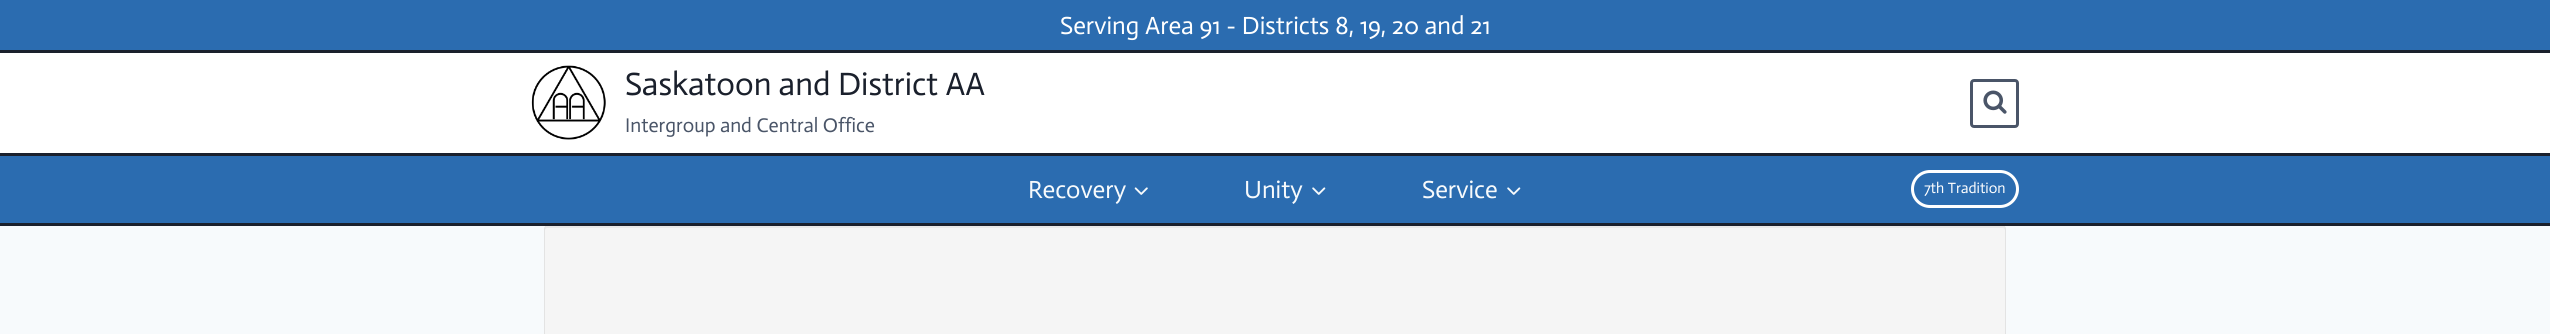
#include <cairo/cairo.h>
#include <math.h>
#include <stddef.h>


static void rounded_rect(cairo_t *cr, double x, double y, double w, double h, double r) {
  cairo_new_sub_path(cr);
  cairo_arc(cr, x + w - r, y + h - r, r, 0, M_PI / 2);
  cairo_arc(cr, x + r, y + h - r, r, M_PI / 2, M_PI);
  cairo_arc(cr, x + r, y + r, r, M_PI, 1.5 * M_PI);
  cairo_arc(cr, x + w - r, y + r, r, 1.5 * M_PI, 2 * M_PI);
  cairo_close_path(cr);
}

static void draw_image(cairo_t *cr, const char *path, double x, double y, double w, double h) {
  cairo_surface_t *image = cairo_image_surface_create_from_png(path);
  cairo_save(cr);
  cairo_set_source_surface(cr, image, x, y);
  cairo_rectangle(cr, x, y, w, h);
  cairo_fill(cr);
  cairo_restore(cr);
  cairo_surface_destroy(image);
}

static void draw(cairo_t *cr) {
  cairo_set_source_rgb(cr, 247 / 255.0, 250 / 255.0, 252 / 255.0);
  cairo_paint(cr);
  cairo_set_source_rgb(cr, 1, 1, 1);
  cairo_rectangle(cr, 0, 53, 2550, 100);
  cairo_fill(cr);
  cairo_set_source_rgb(cr, 43 / 255.0, 108 / 255.0, 176 / 255.0);
  cairo_rectangle(cr, 0, 0, 2550, 50);
  cairo_fill(cr);
  cairo_set_source_rgb(cr, 26 / 255.0, 32 / 255.0, 44 / 255.0);
  cairo_rectangle(cr, 0, 50, 2550, 3);
  cairo_fill(cr);
  draw_image(cr, "images/1.png", 531, 65, 75, 75);
  rounded_rect(cr, 1971.5, 80.5, 46, 46, 2.5);
  cairo_set_source_rgb(cr, 74 / 255.0, 85 / 255.0, 104 / 255.0);
  cairo_set_line_width(cr, 3);
  cairo_stroke(cr);
  draw_image(cr, "images/2.png", 1983, 90, 24, 24);
  cairo_set_source_rgb(cr, 43 / 255.0, 108 / 255.0, 176 / 255.0);
  cairo_rectangle(cr, 0, 156, 2550, 67);
  cairo_fill(cr);
  cairo_set_source_rgb(cr, 26 / 255.0, 32 / 255.0, 44 / 255.0);
  cairo_rectangle(cr, 0, 153, 2550, 3);
  cairo_fill(cr);
  cairo_set_source_rgb(cr, 245 / 255.0, 245 / 255.0, 245 / 255.0);
  rounded_rect(cr, 544, 225, 1462, 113, 4);
  cairo_fill(cr);
  cairo_set_source_rgb(cr, 233 / 255.0, 233 / 255.0, 233 / 255.0);
  cairo_new_path(cr);
  cairo_move_to(cr, 548, 228);
  cairo_line_to(cr, 2002, 228);
  cairo_curve_to(cr, 2004, 228, 2005, 229, 2005, 230);
  cairo_line_to(cr, 2005, 228);
  cairo_curve_to(cr, 2005, 227, 2004, 226, 2002, 226);
  cairo_line_to(cr, 548, 226);
  cairo_curve_to(cr, 546, 226, 545, 227, 545, 228);
  cairo_line_to(cr, 545, 230);
  cairo_curve_to(cr, 545, 229, 546, 228, 548, 228);
  cairo_close_path(cr);
  cairo_fill(cr);
  rounded_rect(cr, 544.5, 225.5, 1461, 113, 3.5);
  cairo_set_source_rgb(cr, 227 / 255.0, 227 / 255.0, 227 / 255.0);
  cairo_set_line_width(cr, 1);
  cairo_stroke(cr);
  cairo_set_source_rgb(cr, 26 / 255.0, 32 / 255.0, 44 / 255.0);
  cairo_rectangle(cr, 0, 223, 2550, 3);
  cairo_fill(cr);
  draw_image(cr, "images/3.png", 1134, 187, 14, 8);
  draw_image(cr, "images/4.png", 1312, 187, 14, 8);
  draw_image(cr, "images/4.png", 1507, 187, 14, 8);
  rounded_rect(cr, 1912.5, 171.5, 105, 35, 17.5);
  cairo_set_source_rgb(cr, 1, 1, 1);
  cairo_set_line_width(cr, 3);
  cairo_stroke(cr);
  cairo_select_font_face(cr, "Actor", CAIRO_FONT_SLANT_NORMAL, CAIRO_FONT_WEIGHT_NORMAL);
  cairo_set_font_size(cr, 25);
  cairo_move_to(cr, 1060, 34);
  cairo_show_text(cr, "Serving Area 91 - Districts 8, 19, 20 and 21");
  cairo_set_font_size(cr, 32.5);
  cairo_set_source_rgb(cr, 26 / 255.0, 32 / 255.0, 44 / 255.0);
  cairo_move_to(cr, 625, 95);
  cairo_show_text(cr, "Saskatoon and District AA");
  cairo_set_font_size(cr, 20);
  cairo_set_source_rgb(cr, 74 / 255.0, 85 / 255.0, 104 / 255.0);
  cairo_move_to(cr, 625, 132);
  cairo_show_text(cr, "Intergroup and Central Office");
  cairo_set_font_size(cr, 25);
  cairo_set_source_rgb(cr, 247 / 255.0, 250 / 255.0, 252 / 255.0);
  cairo_move_to(cr, 1028, 198);
  cairo_show_text(cr, "Recovery");
  cairo_move_to(cr, 1244, 198);
  cairo_show_text(cr, "Unity");
  cairo_move_to(cr, 1422, 198);
  cairo_show_text(cr, "Service");
  cairo_set_font_size(cr, 15);
  cairo_set_source_rgb(cr, 1, 1, 1);
  cairo_move_to(cr, 1924, 193);
  cairo_show_text(cr, "7th Tradition");
}

int main(void) {
  cairo_surface_t *surface = cairo_image_surface_create(CAIRO_FORMAT_RGB24, 2550, 334);
  cairo_t *cr = cairo_create(surface);
  cairo_font_options_t *options = cairo_font_options_create();
  cairo_font_options_set_hint_metrics(options, CAIRO_HINT_METRICS_OFF);
  cairo_font_options_set_hint_style(options, CAIRO_HINT_STYLE_NONE);
  cairo_set_font_options(cr, options);
  cairo_set_miter_limit(cr, 4);
  draw(cr);
  cairo_surface_write_to_png(surface, "out.png");
  cairo_font_options_destroy(options);
  cairo_destroy(cr);
  cairo_surface_destroy(surface);
  return 0;
}
